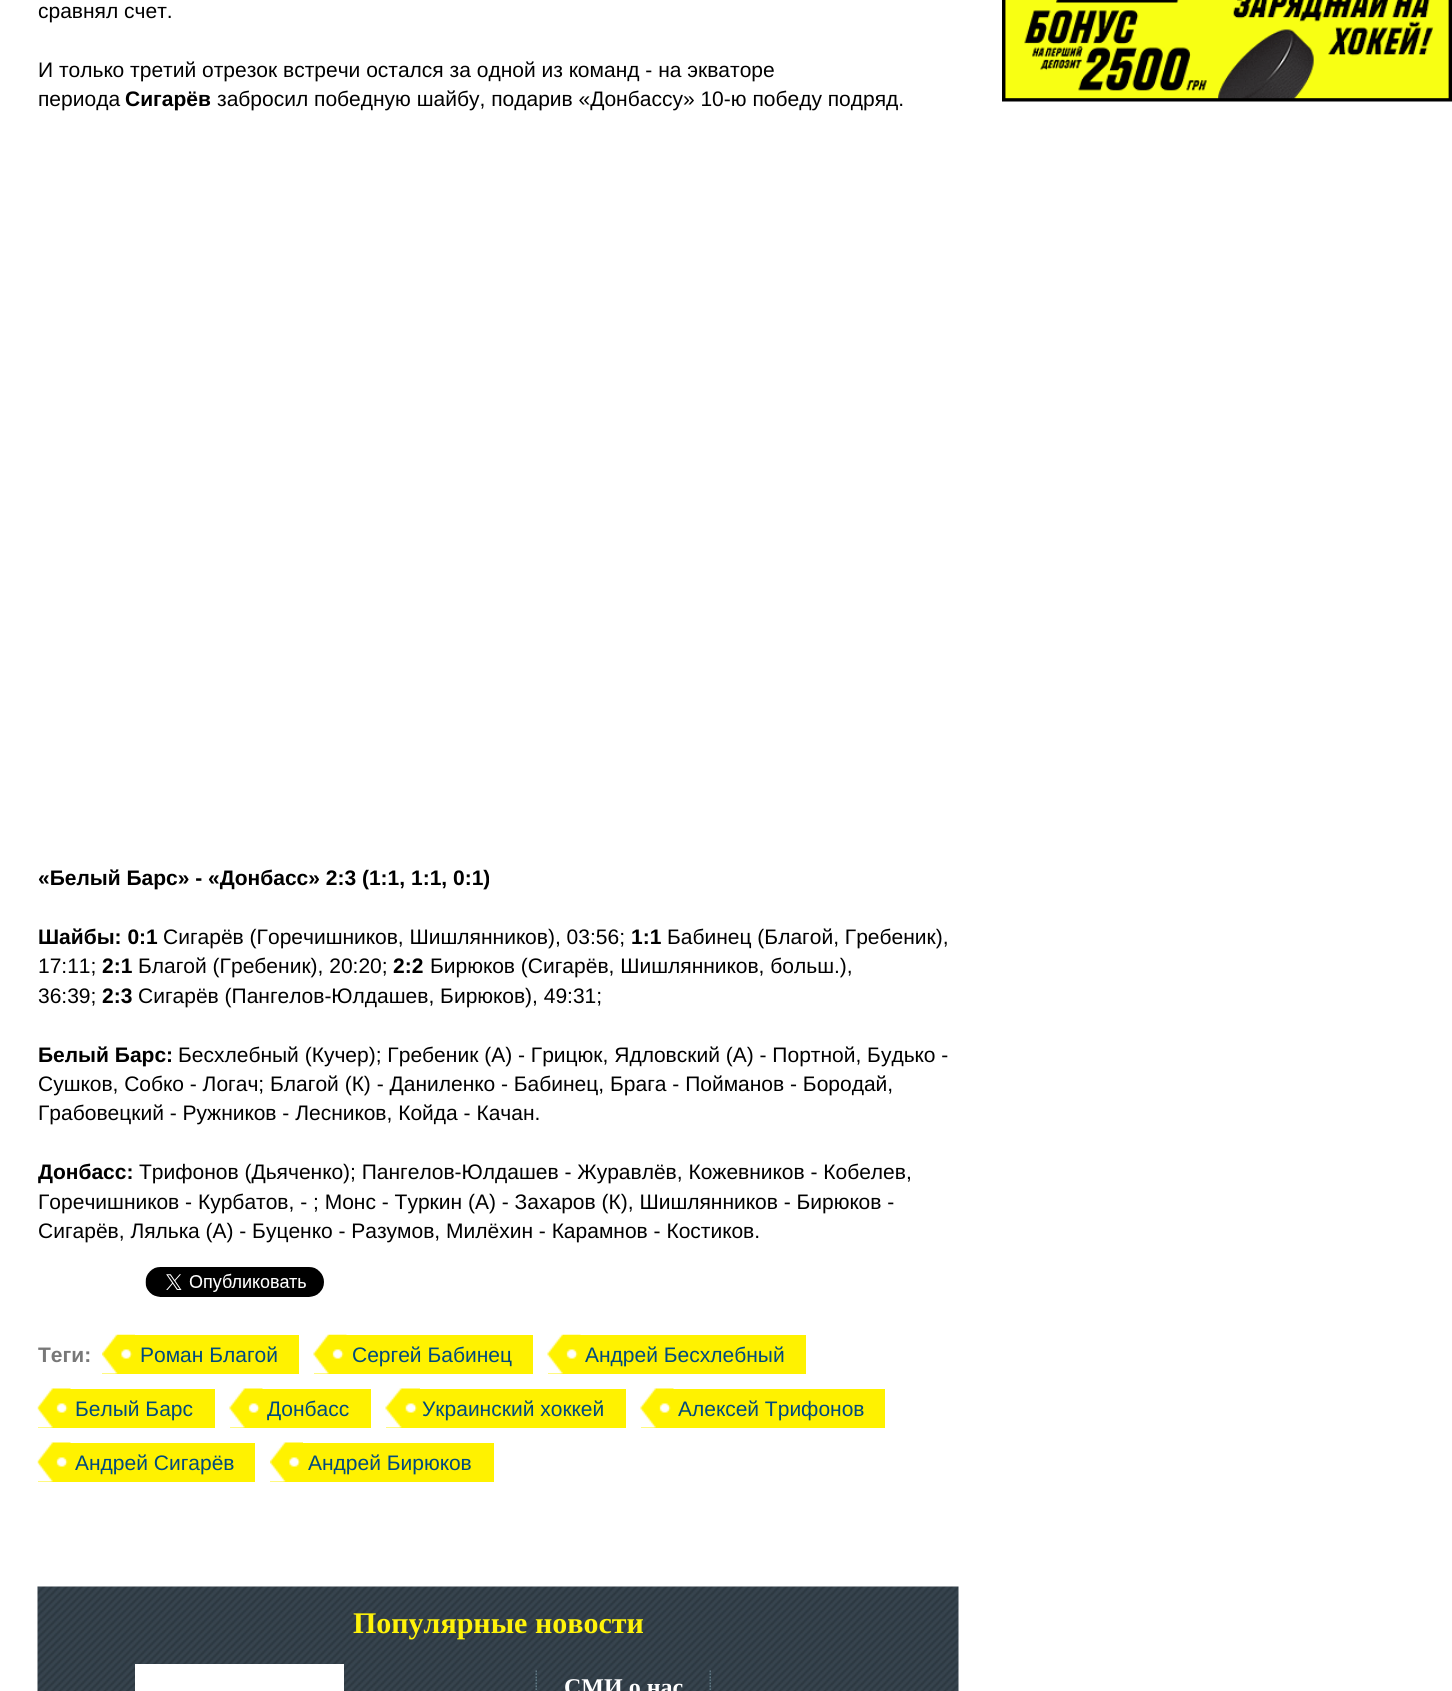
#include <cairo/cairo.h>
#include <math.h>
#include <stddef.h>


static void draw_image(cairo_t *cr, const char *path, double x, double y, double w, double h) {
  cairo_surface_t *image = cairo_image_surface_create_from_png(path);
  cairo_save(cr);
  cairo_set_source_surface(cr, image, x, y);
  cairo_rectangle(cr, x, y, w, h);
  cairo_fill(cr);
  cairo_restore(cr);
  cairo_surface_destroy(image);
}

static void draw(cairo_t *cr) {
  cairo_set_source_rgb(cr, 1, 1, 1);
  cairo_paint(cr);
  draw_image(cr, "images/1.png", 145, 1267, 179, 30);
  cairo_set_source_rgb(cr, 1, 242 / 255.0, 0);
  cairo_rectangle(cr, 102, 1335, 197, 39);
  cairo_fill(cr);
  draw_image(cr, "images/2.png", 102, 1334, 33, 40);
  cairo_rectangle(cr, 314, 1335, 219, 39);
  cairo_fill(cr);
  draw_image(cr, "images/3.png", 313, 1334, 34, 40);
  cairo_rectangle(cr, 548, 1335, 258, 39);
  cairo_fill(cr);
  draw_image(cr, "images/4.png", 547, 1334, 34, 40);
  cairo_rectangle(cr, 38, 1389, 177, 39);
  cairo_fill(cr);
  draw_image(cr, "images/5.png", 37, 1388, 34, 40);
  cairo_rectangle(cr, 230, 1389, 141, 39);
  cairo_fill(cr);
  draw_image(cr, "images/6.png", 229, 1388, 34, 40);
  cairo_rectangle(cr, 386, 1389, 240, 39);
  cairo_fill(cr);
  draw_image(cr, "images/7.png", 385, 1388, 35, 40);
  cairo_rectangle(cr, 641, 1389, 244, 39);
  cairo_fill(cr);
  draw_image(cr, "images/8.png", 640, 1388, 34, 40);
  cairo_rectangle(cr, 38, 1443, 217, 39);
  cairo_fill(cr);
  draw_image(cr, "images/5.png", 37, 1442, 34, 40);
  cairo_rectangle(cr, 270, 1443, 224, 39);
  cairo_fill(cr);
  draw_image(cr, "images/9.png", 270, 1442, 33, 40);
  draw_image(cr, "images/10.png", 37, 1586, 922, 105);
  cairo_set_source_rgb(cr, 1, 1, 1);
  cairo_rectangle(cr, 135, 1664, 209, 27);
  cairo_fill(cr);
  draw_image(cr, "images/11.png", 535, 1670, 2, 21);
  draw_image(cr, "images/12.png", 709, 1670, 2, 21);
  draw_image(cr, "images/13.png", 1002, 0, 450, 102);
  cairo_select_font_face(cr, "Liberation Sans", CAIRO_FONT_SLANT_NORMAL, CAIRO_FONT_WEIGHT_NORMAL);
  cairo_set_font_size(cr, 21);
  cairo_set_source_rgb(cr, 0, 0, 0);
  cairo_move_to(cr, 38, 18);
  cairo_show_text(cr, "сравнял счет.");
  cairo_move_to(cr, 38, 77);
  cairo_show_text(cr, "И только третий отрезок встречи остался за одной из команд - на экваторе");
  cairo_move_to(cr, 38, 106);
  cairo_show_text(cr, "периода");
  cairo_select_font_face(cr, "Liberation Sans", CAIRO_FONT_SLANT_NORMAL, CAIRO_FONT_WEIGHT_BOLD);
  cairo_move_to(cr, 125, 106);
  cairo_show_text(cr, "Сигарёв");
  cairo_select_font_face(cr, "Liberation Sans", CAIRO_FONT_SLANT_NORMAL, CAIRO_FONT_WEIGHT_NORMAL);
  cairo_move_to(cr, 217, 106);
  cairo_show_text(cr, "забросил победную шайбу, подарив «Донбассу» 10-ю победу подряд.");
  cairo_select_font_face(cr, "Liberation Sans", CAIRO_FONT_SLANT_NORMAL, CAIRO_FONT_WEIGHT_BOLD);
  cairo_move_to(cr, 38, 885);
  cairo_show_text(cr, "«Белый Барс» - «Донбасс» 2:3 (1:1, 1:1, 0:1)");
  cairo_move_to(cr, 38, 944);
  cairo_show_text(cr, "Шайбы: 0:1");
  cairo_select_font_face(cr, "Liberation Sans", CAIRO_FONT_SLANT_NORMAL, CAIRO_FONT_WEIGHT_NORMAL);
  cairo_move_to(cr, 163, 944);
  cairo_show_text(cr, "Сигарёв (Горечишников, Шишлянников), 03:56;");
  cairo_select_font_face(cr, "Liberation Sans", CAIRO_FONT_SLANT_NORMAL, CAIRO_FONT_WEIGHT_BOLD);
  cairo_move_to(cr, 631, 944);
  cairo_show_text(cr, "1:1");
  cairo_select_font_face(cr, "Liberation Sans", CAIRO_FONT_SLANT_NORMAL, CAIRO_FONT_WEIGHT_NORMAL);
  cairo_move_to(cr, 667, 944);
  cairo_show_text(cr, "Бабинец (Благой, Гребеник),");
  cairo_move_to(cr, 38, 973);
  cairo_show_text(cr, "17:11;");
  cairo_select_font_face(cr, "Liberation Sans", CAIRO_FONT_SLANT_NORMAL, CAIRO_FONT_WEIGHT_BOLD);
  cairo_move_to(cr, 102, 973);
  cairo_show_text(cr, "2:1");
  cairo_select_font_face(cr, "Liberation Sans", CAIRO_FONT_SLANT_NORMAL, CAIRO_FONT_WEIGHT_NORMAL);
  cairo_move_to(cr, 138, 973);
  cairo_show_text(cr, "Благой (Гребеник), 20:20;");
  cairo_select_font_face(cr, "Liberation Sans", CAIRO_FONT_SLANT_NORMAL, CAIRO_FONT_WEIGHT_BOLD);
  cairo_move_to(cr, 393, 973);
  cairo_show_text(cr, "2:2");
  cairo_select_font_face(cr, "Liberation Sans", CAIRO_FONT_SLANT_NORMAL, CAIRO_FONT_WEIGHT_NORMAL);
  cairo_move_to(cr, 430, 973);
  cairo_show_text(cr, "Бирюков (Сигарёв, Шишлянников, больш.),");
  cairo_move_to(cr, 38, 1003);
  cairo_show_text(cr, "36:39;");
  cairo_select_font_face(cr, "Liberation Sans", CAIRO_FONT_SLANT_NORMAL, CAIRO_FONT_WEIGHT_BOLD);
  cairo_move_to(cr, 102, 1003);
  cairo_show_text(cr, "2:3");
  cairo_select_font_face(cr, "Liberation Sans", CAIRO_FONT_SLANT_NORMAL, CAIRO_FONT_WEIGHT_NORMAL);
  cairo_move_to(cr, 138, 1003);
  cairo_show_text(cr, "Сигарёв (Пангелов-Юлдашев, Бирюков), 49:31;");
  cairo_select_font_face(cr, "Liberation Sans", CAIRO_FONT_SLANT_NORMAL, CAIRO_FONT_WEIGHT_BOLD);
  cairo_move_to(cr, 38, 1062);
  cairo_show_text(cr, "Белый Барс:");
  cairo_select_font_face(cr, "Liberation Sans", CAIRO_FONT_SLANT_NORMAL, CAIRO_FONT_WEIGHT_NORMAL);
  cairo_move_to(cr, 178, 1062);
  cairo_show_text(cr, "Бесхлебный (Кучер); Гребеник (А) - Грицюк, Ядловский (А) - Портной, Будько -");
  cairo_move_to(cr, 38, 1091);
  cairo_show_text(cr, "Сушков, Собко - Логач; Благой (К) - Даниленко - Бабинец, Брага - Пойманов - Бородай,");
  cairo_move_to(cr, 38, 1120);
  cairo_show_text(cr, "Грабовецкий - Ружников - Лесников, Койда - Качан.");
  cairo_select_font_face(cr, "Liberation Sans", CAIRO_FONT_SLANT_NORMAL, CAIRO_FONT_WEIGHT_BOLD);
  cairo_move_to(cr, 38, 1179);
  cairo_show_text(cr, "Донбасс:");
  cairo_select_font_face(cr, "Liberation Sans", CAIRO_FONT_SLANT_NORMAL, CAIRO_FONT_WEIGHT_NORMAL);
  cairo_move_to(cr, 139, 1179);
  cairo_show_text(cr, "Трифонов (Дьяченко); Пангелов-Юлдашев - Журавлёв, Кожевников - Кобелев,");
  cairo_move_to(cr, 38, 1209);
  cairo_show_text(cr, "Горечишников - Курбатов, - ; Монс - Туркин (А) - Захаров (К), Шишлянников - Бирюков -");
  cairo_move_to(cr, 38, 1238);
  cairo_show_text(cr, "Сигарёв, Лялька (А) - Буценко - Разумов, Милёхин - Карамнов - Костиков.");
  cairo_save(cr);
  cairo_rectangle(cr, 38, 1335, 921, 162);
  cairo_clip(cr);
  cairo_select_font_face(cr, "Liberation Sans", CAIRO_FONT_SLANT_NORMAL, CAIRO_FONT_WEIGHT_BOLD);
  cairo_set_source_rgb(cr, 120 / 255.0, 120 / 255.0, 120 / 255.0);
  cairo_move_to(cr, 38, 1362);
  cairo_show_text(cr, "Теги:");
  cairo_restore(cr);
  cairo_set_source_rgb(cr, 0, 74 / 255.0, 126 / 255.0);
  cairo_move_to(cr, 140, 1362);
  cairo_show_text(cr, "Роман Благой");
  cairo_move_to(cr, 352, 1362);
  cairo_show_text(cr, "Сергей Бабинец");
  cairo_move_to(cr, 585, 1362);
  cairo_show_text(cr, "Андрей Бесхлебный");
  cairo_move_to(cr, 75, 1416);
  cairo_show_text(cr, "Белый Барс");
  cairo_move_to(cr, 267, 1416);
  cairo_show_text(cr, "Донбасс");
  cairo_move_to(cr, 422, 1416);
  cairo_show_text(cr, "Украинский хоккей");
  cairo_move_to(cr, 678, 1416);
  cairo_show_text(cr, "Алексей Трифонов");
  cairo_move_to(cr, 75, 1470);
  cairo_show_text(cr, "Андрей Сигарёв");
  cairo_move_to(cr, 308, 1470);
  cairo_show_text(cr, "Андрей Бирюков");
  cairo_select_font_face(cr, "Liberation Serif", CAIRO_FONT_SLANT_NORMAL, CAIRO_FONT_WEIGHT_BOLD);
  cairo_set_font_size(cr, 30);
  cairo_set_source_rgb(cr, 1, 243 / 255.0, 10 / 255.0);
  cairo_move_to(cr, 353, 1633);
  cairo_show_text(cr, "Популярные новости");
  cairo_set_font_size(cr, 24);
  cairo_set_source_rgb(cr, 1, 1, 1);
  cairo_move_to(cr, 564, 1695);
  cairo_show_text(cr, "СМИ о нас");
}

int main(void) {
  cairo_surface_t *surface = cairo_image_surface_create(CAIRO_FORMAT_RGB24, 1452, 1691);
  cairo_t *cr = cairo_create(surface);
  cairo_font_options_t *options = cairo_font_options_create();
  cairo_font_options_set_hint_metrics(options, CAIRO_HINT_METRICS_OFF);
  cairo_font_options_set_hint_style(options, CAIRO_HINT_STYLE_NONE);
  cairo_set_font_options(cr, options);
  cairo_set_miter_limit(cr, 4);
  draw(cr);
  cairo_surface_write_to_png(surface, "out.png");
  cairo_font_options_destroy(options);
  cairo_destroy(cr);
  cairo_surface_destroy(surface);
  return 0;
}
